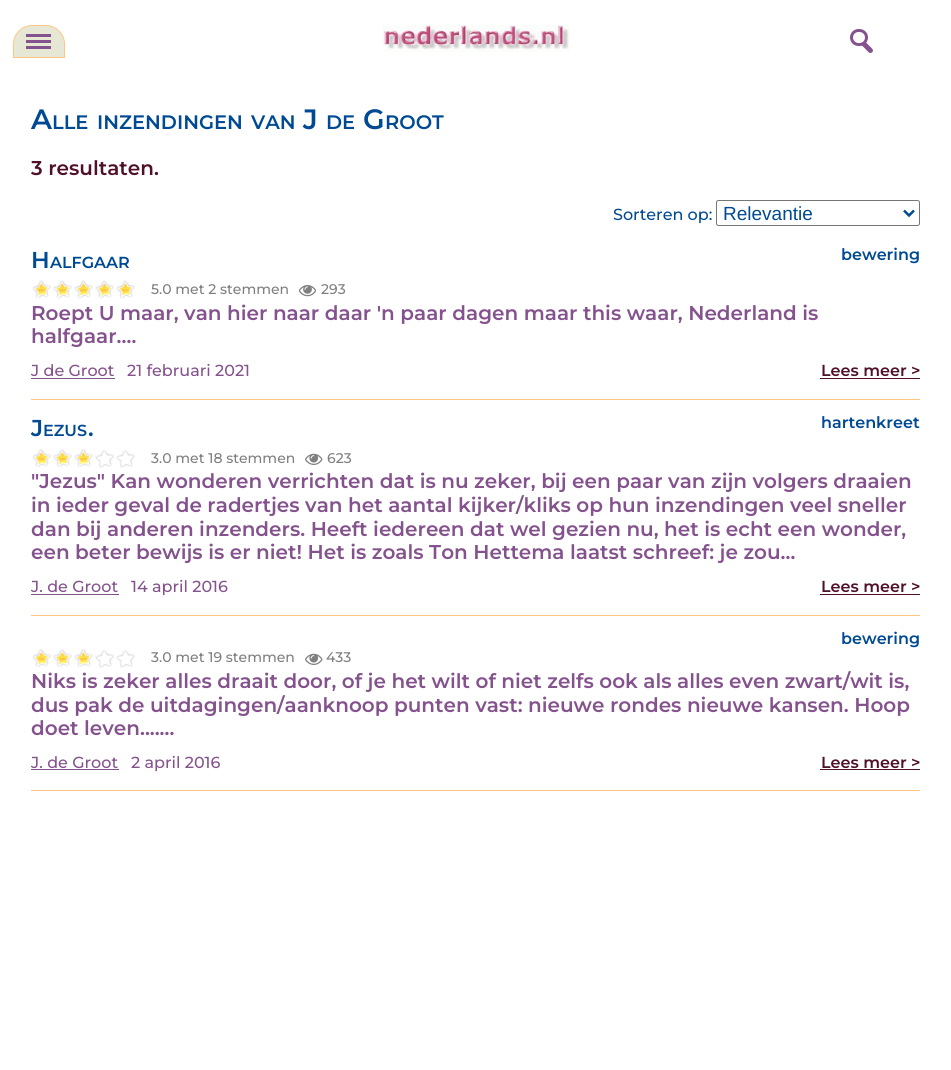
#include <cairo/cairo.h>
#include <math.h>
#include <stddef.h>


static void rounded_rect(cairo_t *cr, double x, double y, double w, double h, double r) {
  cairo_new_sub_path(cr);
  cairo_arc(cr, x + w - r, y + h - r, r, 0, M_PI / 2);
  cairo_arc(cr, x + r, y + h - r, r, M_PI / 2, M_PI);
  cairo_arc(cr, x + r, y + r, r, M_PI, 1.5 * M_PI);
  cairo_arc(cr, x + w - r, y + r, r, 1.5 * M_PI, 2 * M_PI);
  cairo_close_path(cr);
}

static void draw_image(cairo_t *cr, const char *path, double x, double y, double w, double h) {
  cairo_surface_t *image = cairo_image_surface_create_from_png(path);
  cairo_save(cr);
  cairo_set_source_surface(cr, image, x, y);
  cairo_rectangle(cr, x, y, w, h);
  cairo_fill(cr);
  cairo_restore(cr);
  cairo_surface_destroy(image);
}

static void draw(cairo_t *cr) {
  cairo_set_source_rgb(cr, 1, 1, 1);
  cairo_paint(cr);
  cairo_set_source_rgb(cr, 231 / 255.0, 231 / 255.0, 214 / 255.0);
  cairo_new_path(cr);
  cairo_move_to(cr, 32, 25.5);
  cairo_line_to(cr, 46, 25.5);
  cairo_curve_to(cr, 56, 25.5, 64.5, 34, 64.5, 44);
  cairo_line_to(cr, 64.5, 57.5);
  cairo_line_to(cr, 13.5, 57.5);
  cairo_line_to(cr, 13.5, 44);
  cairo_curve_to(cr, 13.5, 34, 22, 25.5, 32, 25.5);
  cairo_close_path(cr);
  cairo_fill_preserve(cr);
  cairo_set_source_rgb(cr, 1, 198 / 255.0, 132 / 255.0);
  cairo_set_line_width(cr, 1);
  cairo_stroke(cr);
  cairo_set_source_rgb(cr, 132 / 255.0, 82 / 255.0, 140 / 255.0);
  cairo_rectangle(cr, 26, 34, 25, 3);
  cairo_fill(cr);
  cairo_rectangle(cr, 26, 40, 25, 3);
  cairo_fill(cr);
  cairo_rectangle(cr, 26, 46, 25, 3);
  cairo_fill(cr);
  draw_image(cr, "images/1.png", 382, 25, 188, 27);
  rounded_rect(cr, 851.5, 30.5, 15, 14, 7);
  cairo_set_line_width(cr, 3);
  cairo_stroke(cr);
  cairo_new_path(cr);
  cairo_move_to(cr, 866, 42.5);
  cairo_line_to(cr, 870.5, 47);
  cairo_curve_to(cr, 871.5, 48, 874, 50, 872.5, 52);
  cairo_line_to(cr, 871, 53);
  cairo_curve_to(cr, 869, 53.5, 867, 50.5, 866, 49.5);
  cairo_line_to(cr, 862, 45.5);
  cairo_curve_to(cr, 861, 43, 864.5, 41, 866, 42.5);
  cairo_close_path(cr);
  cairo_fill(cr);
  rounded_rect(cr, 716.5, 200.5, 203, 25, 2);
  cairo_set_source_rgb(cr, 118 / 255.0, 118 / 255.0, 118 / 255.0);
  cairo_set_line_width(cr, 1);
  cairo_stroke(cr);
  cairo_new_path(cr);
  cairo_move_to(cr, 904, 210.5);
  cairo_line_to(cr, 909, 215.5);
  cairo_line_to(cr, 914, 210.5);
  cairo_set_source_rgb(cr, 0, 74 / 255.0, 148 / 255.0);
  cairo_set_line_width(cr, 2.5);
  cairo_stroke(cr);
  draw_image(cr, "images/2.png", 32, 281, 1, 18);
  draw_image(cr, "images/3.png", 33, 280, 102, 19);
  draw_image(cr, "images/4.png", 299, 285, 17, 12);
  cairo_set_source_rgb(cr, 132 / 255.0, 82 / 255.0, 140 / 255.0);
  cairo_rectangle(cr, 31, 378, 84, 1);
  cairo_fill(cr);
  cairo_set_source_rgb(cr, 80 / 255.0, 16 / 255.0, 42 / 255.0);
  cairo_rectangle(cr, 820, 378, 100, 1);
  cairo_fill(cr);
  cairo_set_source_rgb(cr, 1, 198 / 255.0, 132 / 255.0);
  cairo_rectangle(cr, 31, 399, 889, 1);
  cairo_fill(cr);
  draw_image(cr, "images/5.png", 32, 450, 103, 18);
  draw_image(cr, "images/6.png", 33, 449, 60, 19);
  draw_image(cr, "images/7.png", 305, 453, 18, 12);
  cairo_set_source_rgb(cr, 132 / 255.0, 82 / 255.0, 140 / 255.0);
  cairo_rectangle(cr, 31, 594, 88, 1);
  cairo_fill(cr);
  cairo_set_source_rgb(cr, 80 / 255.0, 16 / 255.0, 42 / 255.0);
  cairo_rectangle(cr, 820, 594, 100, 1);
  cairo_fill(cr);
  cairo_set_source_rgb(cr, 1, 198 / 255.0, 132 / 255.0);
  cairo_rectangle(cr, 31, 615, 889, 1);
  cairo_fill(cr);
  draw_image(cr, "images/5.png", 32, 650, 103, 18);
  draw_image(cr, "images/8.png", 33, 649, 60, 19);
  draw_image(cr, "images/7.png", 305, 653, 18, 12);
  cairo_set_source_rgb(cr, 132 / 255.0, 82 / 255.0, 140 / 255.0);
  cairo_rectangle(cr, 31, 769, 88, 1);
  cairo_fill(cr);
  cairo_set_source_rgb(cr, 80 / 255.0, 16 / 255.0, 42 / 255.0);
  cairo_rectangle(cr, 820, 769, 100, 1);
  cairo_fill(cr);
  cairo_set_source_rgb(cr, 1, 198 / 255.0, 132 / 255.0);
  cairo_rectangle(cr, 31, 790, 889, 1);
  cairo_fill(cr);
  cairo_select_font_face(cr, "Montserrat Thin", CAIRO_FONT_SLANT_NORMAL, CAIRO_FONT_WEIGHT_NORMAL);
  cairo_set_font_size(cr, 28);
  cairo_set_source_rgb(cr, 0, 74 / 255.0, 148 / 255.0);
  cairo_move_to(cr, 31, 129);
  cairo_show_text(cr, "A");
  cairo_set_font_size(cr, 19.5);
  cairo_move_to(cr, 52, 129);
  cairo_show_text(cr, "LLE");
  cairo_move_to(cr, 97, 129);
  cairo_show_text(cr, "INZENDINGEN");
  cairo_move_to(cr, 251, 129);
  cairo_show_text(cr, "VAN");
  cairo_set_font_size(cr, 28);
  cairo_move_to(cr, 303, 129);
  cairo_show_text(cr, "J");
  cairo_set_font_size(cr, 19.5);
  cairo_move_to(cr, 326, 129);
  cairo_show_text(cr, "DE");
  cairo_set_font_size(cr, 28);
  cairo_move_to(cr, 363, 129);
  cairo_show_text(cr, "G");
  cairo_set_font_size(cr, 19.5);
  cairo_move_to(cr, 385, 129);
  cairo_show_text(cr, "ROOT");
  cairo_set_font_size(cr, 20);
  cairo_set_source_rgb(cr, 80 / 255.0, 16 / 255.0, 42 / 255.0);
  cairo_move_to(cr, 31, 175);
  cairo_show_text(cr, "3 resultaten.");
  cairo_select_font_face(cr, "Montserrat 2 Thin", CAIRO_FONT_SLANT_NORMAL, CAIRO_FONT_WEIGHT_NORMAL);
  cairo_set_font_size(cr, 16);
  cairo_set_source_rgb(cr, 0, 74 / 255.0, 148 / 255.0);
  cairo_move_to(cr, 613, 220);
  cairo_show_text(cr, "Sorteren op:");
  cairo_select_font_face(cr, "Liberation Sans", CAIRO_FONT_SLANT_NORMAL, CAIRO_FONT_WEIGHT_NORMAL);
  cairo_set_font_size(cr, 19);
  cairo_move_to(cr, 723, 220);
  cairo_show_text(cr, "Relevantie");
  cairo_select_font_face(cr, "Montserrat Thin", CAIRO_FONT_SLANT_NORMAL, CAIRO_FONT_WEIGHT_NORMAL);
  cairo_set_font_size(cr, 23);
  cairo_move_to(cr, 31, 268);
  cairo_show_text(cr, "H");
  cairo_set_font_size(cr, 16);
  cairo_move_to(cr, 50, 268);
  cairo_show_text(cr, "ALFGAAR");
  cairo_move_to(cr, 841, 260);
  cairo_show_text(cr, "bewering");
  cairo_select_font_face(cr, "Montserrat 2 Thin", CAIRO_FONT_SLANT_NORMAL, CAIRO_FONT_WEIGHT_NORMAL);
  cairo_set_font_size(cr, 14);
  cairo_set_source_rgb(cr, 128 / 255.0, 128 / 255.0, 128 / 255.0);
  cairo_move_to(cr, 151, 294);
  cairo_show_text(cr, "5.0 met 2 stemmen");
  cairo_move_to(cr, 321, 294);
  cairo_show_text(cr, "293");
  cairo_select_font_face(cr, "Montserrat Thin", CAIRO_FONT_SLANT_NORMAL, CAIRO_FONT_WEIGHT_NORMAL);
  cairo_set_font_size(cr, 20);
  cairo_set_source_rgb(cr, 132 / 255.0, 82 / 255.0, 140 / 255.0);
  cairo_move_to(cr, 31, 320);
  cairo_show_text(cr, "Roept U maar, van hier naar daar 'n paar dagen maar this waar, Nederland is");
  cairo_move_to(cr, 31, 343);
  cairo_show_text(cr, "halfgaar.…");
  cairo_select_font_face(cr, "Montserrat 2 Thin", CAIRO_FONT_SLANT_NORMAL, CAIRO_FONT_WEIGHT_NORMAL);
  cairo_set_font_size(cr, 16);
  cairo_move_to(cr, 31, 376);
  cairo_show_text(cr, "J de Groot");
  cairo_move_to(cr, 127, 376);
  cairo_show_text(cr, "21 februari 2021");
  cairo_select_font_face(cr, "Montserrat Thin", CAIRO_FONT_SLANT_NORMAL, CAIRO_FONT_WEIGHT_NORMAL);
  cairo_set_source_rgb(cr, 80 / 255.0, 16 / 255.0, 42 / 255.0);
  cairo_move_to(cr, 821, 376);
  cairo_show_text(cr, "Lees meer >");
  cairo_set_font_size(cr, 23);
  cairo_set_source_rgb(cr, 0, 74 / 255.0, 148 / 255.0);
  cairo_move_to(cr, 31, 436);
  cairo_show_text(cr, "J");
  cairo_set_font_size(cr, 16);
  cairo_move_to(cr, 43, 436);
  cairo_show_text(cr, "EZUS");
  cairo_set_font_size(cr, 23);
  cairo_move_to(cr, 88, 436);
  cairo_show_text(cr, ".");
  cairo_set_font_size(cr, 16);
  cairo_move_to(cr, 821, 428);
  cairo_show_text(cr, "hartenkreet");
  cairo_select_font_face(cr, "Montserrat 2 Thin", CAIRO_FONT_SLANT_NORMAL, CAIRO_FONT_WEIGHT_NORMAL);
  cairo_set_font_size(cr, 14);
  cairo_set_source_rgb(cr, 128 / 255.0, 128 / 255.0, 128 / 255.0);
  cairo_move_to(cr, 151, 463);
  cairo_show_text(cr, "3.0 met 18 stemmen");
  cairo_move_to(cr, 327, 463);
  cairo_show_text(cr, "623");
  cairo_select_font_face(cr, "Montserrat Thin", CAIRO_FONT_SLANT_NORMAL, CAIRO_FONT_WEIGHT_NORMAL);
  cairo_set_font_size(cr, 20);
  cairo_set_source_rgb(cr, 132 / 255.0, 82 / 255.0, 140 / 255.0);
  cairo_move_to(cr, 31, 488);
  cairo_show_text(cr, "\"Jezus\" Kan wonderen verrichten dat is nu zeker, bij een paar van zijn volgers draaien");
  cairo_move_to(cr, 31, 512);
  cairo_show_text(cr, "in ieder geval de radertjes van het aantal kijker/kliks op hun inzendingen veel sneller");
  cairo_move_to(cr, 31, 536);
  cairo_show_text(cr, "dan bij anderen inzenders. Heeft iedereen dat wel gezien nu, het is echt een wonder,");
  cairo_move_to(cr, 31, 559);
  cairo_show_text(cr, "een beter bewijs is er niet! Het is zoals Ton Hettema laatst schreef: je zou…");
  cairo_select_font_face(cr, "Montserrat 2 Thin", CAIRO_FONT_SLANT_NORMAL, CAIRO_FONT_WEIGHT_NORMAL);
  cairo_set_font_size(cr, 16);
  cairo_move_to(cr, 31, 592);
  cairo_show_text(cr, "J. de Groot");
  cairo_move_to(cr, 131, 592);
  cairo_show_text(cr, "14 april 2016");
  cairo_select_font_face(cr, "Montserrat Thin", CAIRO_FONT_SLANT_NORMAL, CAIRO_FONT_WEIGHT_NORMAL);
  cairo_set_source_rgb(cr, 80 / 255.0, 16 / 255.0, 42 / 255.0);
  cairo_move_to(cr, 821, 592);
  cairo_show_text(cr, "Lees meer >");
  cairo_set_source_rgb(cr, 0, 74 / 255.0, 148 / 255.0);
  cairo_move_to(cr, 841, 644);
  cairo_show_text(cr, "bewering");
  cairo_select_font_face(cr, "Montserrat 2 Thin", CAIRO_FONT_SLANT_NORMAL, CAIRO_FONT_WEIGHT_NORMAL);
  cairo_set_font_size(cr, 14);
  cairo_set_source_rgb(cr, 128 / 255.0, 128 / 255.0, 128 / 255.0);
  cairo_move_to(cr, 151, 662);
  cairo_show_text(cr, "3.0 met 19 stemmen");
  cairo_move_to(cr, 326, 662);
  cairo_show_text(cr, "433");
  cairo_select_font_face(cr, "Montserrat Thin", CAIRO_FONT_SLANT_NORMAL, CAIRO_FONT_WEIGHT_NORMAL);
  cairo_set_font_size(cr, 20);
  cairo_set_source_rgb(cr, 132 / 255.0, 82 / 255.0, 140 / 255.0);
  cairo_move_to(cr, 31, 688);
  cairo_show_text(cr, "Niks is zeker alles draait door, of je het wilt of niet zelfs ook als alles even zwart/wit is,");
  cairo_move_to(cr, 31, 712);
  cairo_show_text(cr, "dus pak de uitdagingen/aanknoop punten vast: nieuwe rondes nieuwe kansen. Hoop");
  cairo_move_to(cr, 31, 735);
  cairo_show_text(cr, "doet leven....…");
  cairo_select_font_face(cr, "Montserrat 2 Thin", CAIRO_FONT_SLANT_NORMAL, CAIRO_FONT_WEIGHT_NORMAL);
  cairo_set_font_size(cr, 16);
  cairo_move_to(cr, 31, 768);
  cairo_show_text(cr, "J. de Groot");
  cairo_move_to(cr, 131, 768);
  cairo_show_text(cr, "2 april 2016");
  cairo_select_font_face(cr, "Montserrat Thin", CAIRO_FONT_SLANT_NORMAL, CAIRO_FONT_WEIGHT_NORMAL);
  cairo_set_source_rgb(cr, 80 / 255.0, 16 / 255.0, 42 / 255.0);
  cairo_move_to(cr, 821, 768);
  cairo_show_text(cr, "Lees meer >");
}

int main(void) {
  cairo_surface_t *surface = cairo_image_surface_create(CAIRO_FORMAT_RGB24, 951, 1070);
  cairo_t *cr = cairo_create(surface);
  cairo_font_options_t *options = cairo_font_options_create();
  cairo_font_options_set_hint_metrics(options, CAIRO_HINT_METRICS_OFF);
  cairo_font_options_set_hint_style(options, CAIRO_HINT_STYLE_NONE);
  cairo_set_font_options(cr, options);
  cairo_set_miter_limit(cr, 4);
  draw(cr);
  cairo_surface_write_to_png(surface, "out.png");
  cairo_font_options_destroy(options);
  cairo_destroy(cr);
  cairo_surface_destroy(surface);
  return 0;
}
